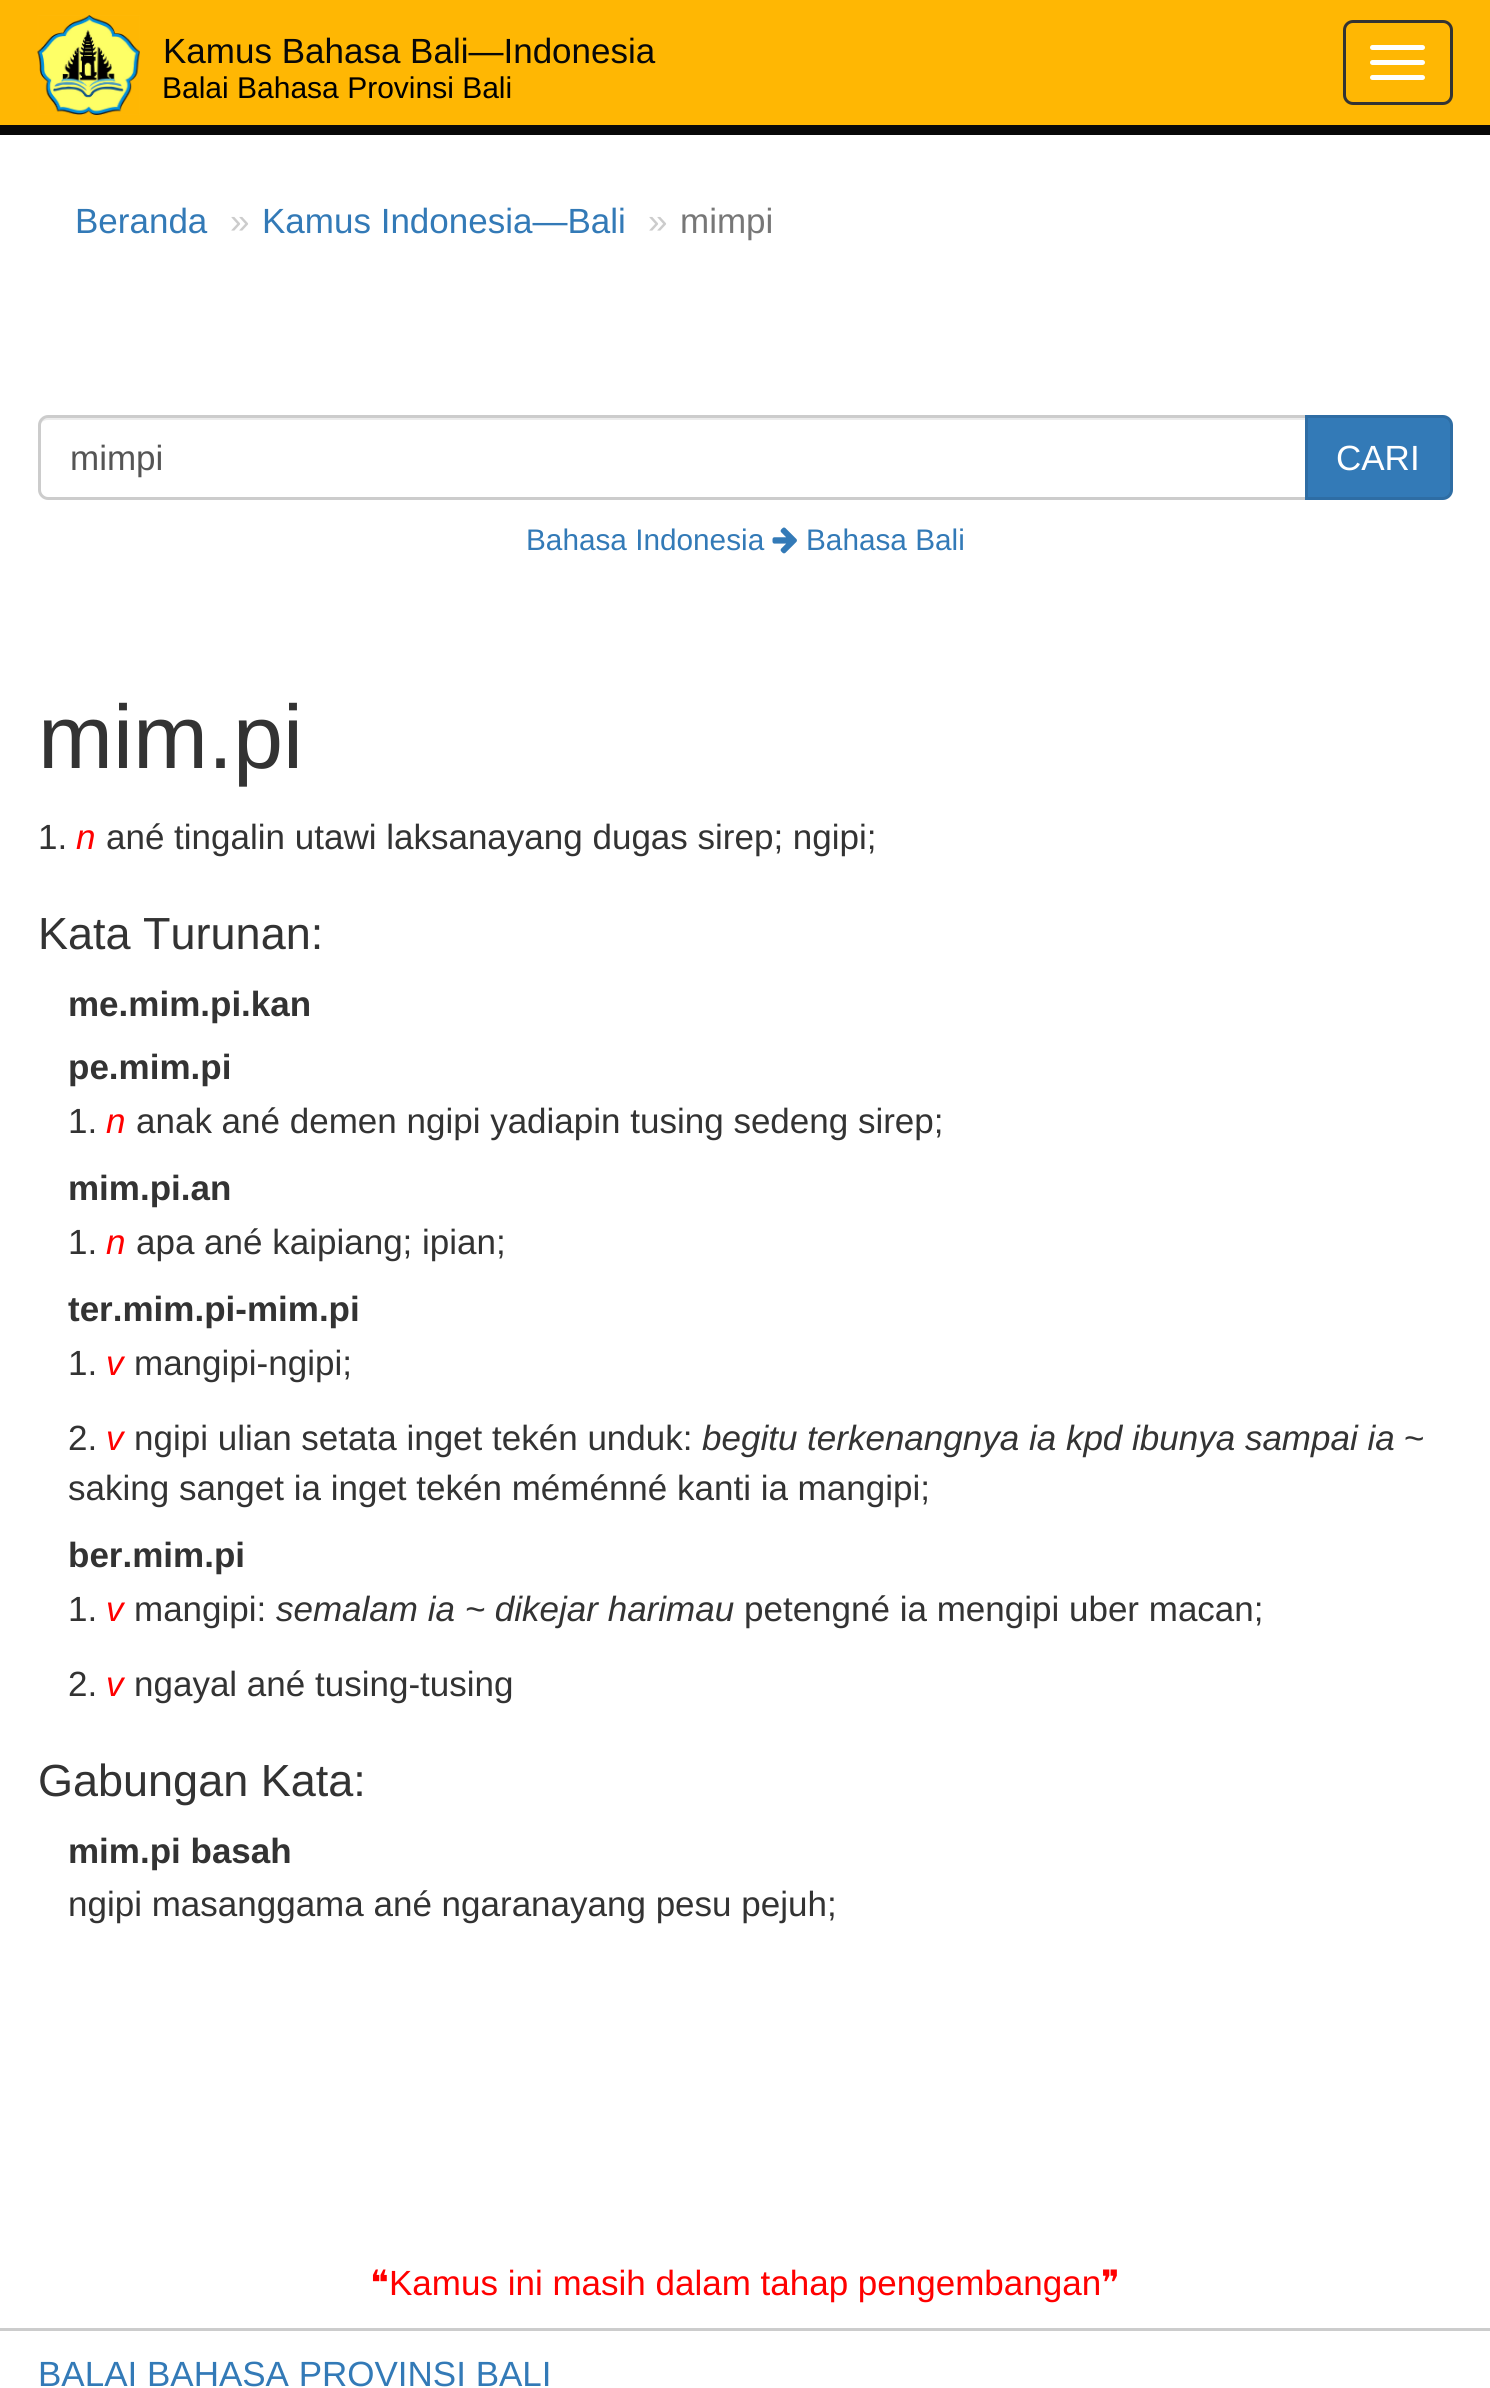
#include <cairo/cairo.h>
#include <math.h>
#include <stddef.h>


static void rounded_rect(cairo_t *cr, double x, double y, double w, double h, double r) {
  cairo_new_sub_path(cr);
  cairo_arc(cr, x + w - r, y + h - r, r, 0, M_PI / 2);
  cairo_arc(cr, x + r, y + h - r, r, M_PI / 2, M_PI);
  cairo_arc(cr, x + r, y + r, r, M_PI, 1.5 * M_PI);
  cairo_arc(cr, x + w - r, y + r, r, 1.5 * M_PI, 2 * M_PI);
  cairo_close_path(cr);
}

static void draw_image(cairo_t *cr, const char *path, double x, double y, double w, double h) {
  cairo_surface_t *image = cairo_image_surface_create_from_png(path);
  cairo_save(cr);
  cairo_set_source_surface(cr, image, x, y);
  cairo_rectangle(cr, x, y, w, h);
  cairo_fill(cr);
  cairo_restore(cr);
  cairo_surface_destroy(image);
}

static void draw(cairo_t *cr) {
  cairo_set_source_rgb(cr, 1, 1, 1);
  cairo_paint(cr);
  cairo_set_source_rgb(cr, 1, 183 / 255.0, 3 / 255.0);
  cairo_rectangle(cr, 0, 0, 1490, 125);
  cairo_fill(cr);
  cairo_set_source_rgb(cr, 8 / 255.0, 8 / 255.0, 8 / 255.0);
  cairo_rectangle(cr, 0, 125, 1490, 10);
  cairo_fill(cr);
  draw_image(cr, "images/1.png", 37, 15, 103, 100);
  rounded_rect(cr, 1344.5, 21.5, 107, 82, 8.5);
  cairo_set_source_rgb(cr, 51 / 255.0, 51 / 255.0, 51 / 255.0);
  cairo_set_line_width(cr, 3);
  cairo_stroke(cr);
  cairo_set_source_rgb(cr, 1, 1, 1);
  rounded_rect(cr, 1370, 45, 55, 5, 2.5);
  cairo_fill(cr);
  rounded_rect(cr, 1370, 60, 55, 5, 2.5);
  cairo_fill(cr);
  rounded_rect(cr, 1370, 75, 55, 5, 2.5);
  cairo_fill(cr);
  cairo_set_source_rgb(cr, 236 / 255.0, 236 / 255.0, 236 / 255.0);
  cairo_new_path(cr);
  cairo_move_to(cr, 48, 420);
  cairo_line_to(cr, 1305, 420);
  cairo_line_to(cr, 1305, 418);
  cairo_line_to(cr, 48, 418);
  cairo_curve_to(cr, 42, 418, 40, 423, 40, 428);
  cairo_curve_to(cr, 40, 423, 43, 420, 48, 420);
  cairo_close_path(cr);
  cairo_fill(cr);
  cairo_new_path(cr);
  cairo_move_to(cr, 48, 416.5);
  cairo_line_to(cr, 1306.5, 416.5);
  cairo_line_to(cr, 1306.5, 498.5);
  cairo_line_to(cr, 48, 498.5);
  cairo_curve_to(cr, 43.5, 498.5, 39.5, 494.5, 39.5, 490);
  cairo_line_to(cr, 39.5, 425);
  cairo_curve_to(cr, 39.5, 420.5, 43.5, 416.5, 48, 416.5);
  cairo_close_path(cr);
  cairo_set_source_rgb(cr, 204 / 255.0, 204 / 255.0, 204 / 255.0);
  cairo_stroke(cr);
  cairo_set_source_rgb(cr, 51 / 255.0, 122 / 255.0, 183 / 255.0);
  cairo_new_path(cr);
  cairo_move_to(cr, 1306.5, 416.5);
  cairo_line_to(cr, 1443, 416.5);
  cairo_curve_to(cr, 1447.5, 416.5, 1451.5, 420.5, 1451.5, 425);
  cairo_line_to(cr, 1451.5, 490);
  cairo_curve_to(cr, 1451.5, 494.5, 1447.5, 498.5, 1443, 498.5);
  cairo_line_to(cr, 1306.5, 498.5);
  cairo_close_path(cr);
  cairo_fill_preserve(cr);
  cairo_set_source_rgb(cr, 46 / 255.0, 109 / 255.0, 164 / 255.0);
  cairo_stroke(cr);
  draw_image(cr, "images/2.png", 772, 527, 25, 27);
  cairo_set_source_rgb(cr, 204 / 255.0, 204 / 255.0, 204 / 255.0);
  cairo_rectangle(cr, 0, 2328, 1490, 3);
  cairo_fill(cr);
  cairo_select_font_face(cr, "Liberation Sans", CAIRO_FONT_SLANT_NORMAL, CAIRO_FONT_WEIGHT_NORMAL);
  cairo_set_font_size(cr, 35);
  cairo_set_source_rgb(cr, 8 / 255.0, 8 / 255.0, 8 / 255.0);
  cairo_move_to(cr, 163, 63);
  cairo_show_text(cr, "Kamus Bahasa Bali—Indonesia");
  cairo_set_font_size(cr, 30);
  cairo_set_source_rgb(cr, 0, 0, 0);
  cairo_move_to(cr, 162, 98);
  cairo_show_text(cr, "Balai Bahasa Provinsi Bali");
  cairo_set_font_size(cr, 35);
  cairo_set_source_rgb(cr, 51 / 255.0, 122 / 255.0, 183 / 255.0);
  cairo_move_to(cr, 75, 233);
  cairo_show_text(cr, "Beranda");
  cairo_set_source_rgb(cr, 204 / 255.0, 204 / 255.0, 204 / 255.0);
  cairo_move_to(cr, 230, 233);
  cairo_show_text(cr, "»");
  cairo_set_source_rgb(cr, 51 / 255.0, 122 / 255.0, 183 / 255.0);
  cairo_move_to(cr, 262, 233);
  cairo_show_text(cr, "Kamus Indonesia—Bali");
  cairo_set_source_rgb(cr, 204 / 255.0, 204 / 255.0, 204 / 255.0);
  cairo_move_to(cr, 648, 233);
  cairo_show_text(cr, "»");
  cairo_set_source_rgb(cr, 119 / 255.0, 119 / 255.0, 119 / 255.0);
  cairo_move_to(cr, 680, 233);
  cairo_show_text(cr, "mimpi");
  cairo_set_source_rgb(cr, 85 / 255.0, 85 / 255.0, 85 / 255.0);
  cairo_move_to(cr, 70, 470);
  cairo_show_text(cr, "mimpi");
  cairo_set_source_rgb(cr, 1, 1, 1);
  cairo_move_to(cr, 1336, 470);
  cairo_show_text(cr, "CARI");
  cairo_set_font_size(cr, 29.75);
  cairo_set_source_rgb(cr, 51 / 255.0, 122 / 255.0, 183 / 255.0);
  cairo_move_to(cr, 526, 550);
  cairo_show_text(cr, "Bahasa Indonesia");
  cairo_move_to(cr, 806, 550);
  cairo_show_text(cr, "Bahasa Bali");
  cairo_set_font_size(cr, 90);
  cairo_set_source_rgb(cr, 51 / 255.0, 51 / 255.0, 51 / 255.0);
  cairo_move_to(cr, 38, 768);
  cairo_show_text(cr, "mim.pi");
  cairo_set_font_size(cr, 35);
  cairo_move_to(cr, 38, 849);
  cairo_show_text(cr, "1.");
  cairo_select_font_face(cr, "Liberation Sans", CAIRO_FONT_SLANT_ITALIC, CAIRO_FONT_WEIGHT_NORMAL);
  cairo_set_source_rgb(cr, 1, 0, 0);
  cairo_move_to(cr, 76, 849);
  cairo_show_text(cr, "n");
  cairo_select_font_face(cr, "Liberation Sans", CAIRO_FONT_SLANT_NORMAL, CAIRO_FONT_WEIGHT_NORMAL);
  cairo_set_source_rgb(cr, 51 / 255.0, 51 / 255.0, 51 / 255.0);
  cairo_move_to(cr, 106, 849);
  cairo_show_text(cr, "ané tingalin utawi laksanayang dugas sirep; ngipi;");
  cairo_set_font_size(cr, 45);
  cairo_move_to(cr, 38, 949);
  cairo_show_text(cr, "Kata Turunan:");
  cairo_select_font_face(cr, "Liberation Sans", CAIRO_FONT_SLANT_NORMAL, CAIRO_FONT_WEIGHT_BOLD);
  cairo_set_font_size(cr, 35);
  cairo_move_to(cr, 68, 1016);
  cairo_show_text(cr, "me.mim.pi.kan");
  cairo_move_to(cr, 68, 1079);
  cairo_show_text(cr, "pe.mim.pi");
  cairo_select_font_face(cr, "Liberation Sans", CAIRO_FONT_SLANT_NORMAL, CAIRO_FONT_WEIGHT_NORMAL);
  cairo_move_to(cr, 68, 1133);
  cairo_show_text(cr, "1.");
  cairo_select_font_face(cr, "Liberation Sans", CAIRO_FONT_SLANT_ITALIC, CAIRO_FONT_WEIGHT_NORMAL);
  cairo_set_source_rgb(cr, 1, 0, 0);
  cairo_move_to(cr, 106, 1133);
  cairo_show_text(cr, "n");
  cairo_select_font_face(cr, "Liberation Sans", CAIRO_FONT_SLANT_NORMAL, CAIRO_FONT_WEIGHT_NORMAL);
  cairo_set_source_rgb(cr, 51 / 255.0, 51 / 255.0, 51 / 255.0);
  cairo_move_to(cr, 136, 1133);
  cairo_show_text(cr, "anak ané demen ngipi yadiapin tusing sedeng sirep;");
  cairo_select_font_face(cr, "Liberation Sans", CAIRO_FONT_SLANT_NORMAL, CAIRO_FONT_WEIGHT_BOLD);
  cairo_move_to(cr, 68, 1200);
  cairo_show_text(cr, "mim.pi.an");
  cairo_select_font_face(cr, "Liberation Sans", CAIRO_FONT_SLANT_NORMAL, CAIRO_FONT_WEIGHT_NORMAL);
  cairo_move_to(cr, 68, 1254);
  cairo_show_text(cr, "1.");
  cairo_select_font_face(cr, "Liberation Sans", CAIRO_FONT_SLANT_ITALIC, CAIRO_FONT_WEIGHT_NORMAL);
  cairo_set_source_rgb(cr, 1, 0, 0);
  cairo_move_to(cr, 106, 1254);
  cairo_show_text(cr, "n");
  cairo_select_font_face(cr, "Liberation Sans", CAIRO_FONT_SLANT_NORMAL, CAIRO_FONT_WEIGHT_NORMAL);
  cairo_set_source_rgb(cr, 51 / 255.0, 51 / 255.0, 51 / 255.0);
  cairo_move_to(cr, 136, 1254);
  cairo_show_text(cr, "apa ané kaipiang; ipian;");
  cairo_select_font_face(cr, "Liberation Sans", CAIRO_FONT_SLANT_NORMAL, CAIRO_FONT_WEIGHT_BOLD);
  cairo_move_to(cr, 68, 1321);
  cairo_show_text(cr, "ter.mim.pi-mim.pi");
  cairo_select_font_face(cr, "Liberation Sans", CAIRO_FONT_SLANT_NORMAL, CAIRO_FONT_WEIGHT_NORMAL);
  cairo_move_to(cr, 68, 1375);
  cairo_show_text(cr, "1.");
  cairo_select_font_face(cr, "Liberation Sans", CAIRO_FONT_SLANT_ITALIC, CAIRO_FONT_WEIGHT_NORMAL);
  cairo_set_source_rgb(cr, 1, 0, 0);
  cairo_move_to(cr, 106, 1375);
  cairo_show_text(cr, "v");
  cairo_select_font_face(cr, "Liberation Sans", CAIRO_FONT_SLANT_NORMAL, CAIRO_FONT_WEIGHT_NORMAL);
  cairo_set_source_rgb(cr, 51 / 255.0, 51 / 255.0, 51 / 255.0);
  cairo_move_to(cr, 134, 1375);
  cairo_show_text(cr, "mangipi-ngipi;");
  cairo_move_to(cr, 68, 1450);
  cairo_show_text(cr, "2.");
  cairo_select_font_face(cr, "Liberation Sans", CAIRO_FONT_SLANT_ITALIC, CAIRO_FONT_WEIGHT_NORMAL);
  cairo_set_source_rgb(cr, 1, 0, 0);
  cairo_move_to(cr, 106, 1450);
  cairo_show_text(cr, "v");
  cairo_select_font_face(cr, "Liberation Sans", CAIRO_FONT_SLANT_NORMAL, CAIRO_FONT_WEIGHT_NORMAL);
  cairo_set_source_rgb(cr, 51 / 255.0, 51 / 255.0, 51 / 255.0);
  cairo_move_to(cr, 134, 1450);
  cairo_show_text(cr, "ngipi ulian setata inget tekén unduk:");
  cairo_select_font_face(cr, "Liberation Sans", CAIRO_FONT_SLANT_ITALIC, CAIRO_FONT_WEIGHT_NORMAL);
  cairo_move_to(cr, 702, 1450);
  cairo_show_text(cr, "begitu terkenangnya ia kpd ibunya sampai ia");
  cairo_select_font_face(cr, "Liberation Sans", CAIRO_FONT_SLANT_NORMAL, CAIRO_FONT_WEIGHT_NORMAL);
  cairo_move_to(cr, 1404, 1450);
  cairo_show_text(cr, "~");
  cairo_move_to(cr, 68, 1500);
  cairo_show_text(cr, "saking sanget ia inget tekén méménné kanti ia mangipi;");
  cairo_select_font_face(cr, "Liberation Sans", CAIRO_FONT_SLANT_NORMAL, CAIRO_FONT_WEIGHT_BOLD);
  cairo_move_to(cr, 68, 1567);
  cairo_show_text(cr, "ber.mim.pi");
  cairo_select_font_face(cr, "Liberation Sans", CAIRO_FONT_SLANT_NORMAL, CAIRO_FONT_WEIGHT_NORMAL);
  cairo_move_to(cr, 68, 1621);
  cairo_show_text(cr, "1.");
  cairo_select_font_face(cr, "Liberation Sans", CAIRO_FONT_SLANT_ITALIC, CAIRO_FONT_WEIGHT_NORMAL);
  cairo_set_source_rgb(cr, 1, 0, 0);
  cairo_move_to(cr, 106, 1621);
  cairo_show_text(cr, "v");
  cairo_select_font_face(cr, "Liberation Sans", CAIRO_FONT_SLANT_NORMAL, CAIRO_FONT_WEIGHT_NORMAL);
  cairo_set_source_rgb(cr, 51 / 255.0, 51 / 255.0, 51 / 255.0);
  cairo_move_to(cr, 134, 1621);
  cairo_show_text(cr, "mangipi:");
  cairo_select_font_face(cr, "Liberation Sans", CAIRO_FONT_SLANT_ITALIC, CAIRO_FONT_WEIGHT_NORMAL);
  cairo_move_to(cr, 276, 1621);
  cairo_show_text(cr, "semalam ia ~ dikejar harimau");
  cairo_select_font_face(cr, "Liberation Sans", CAIRO_FONT_SLANT_NORMAL, CAIRO_FONT_WEIGHT_NORMAL);
  cairo_move_to(cr, 744, 1621);
  cairo_show_text(cr, "petengné ia mengipi uber macan;");
  cairo_move_to(cr, 68, 1696);
  cairo_show_text(cr, "2.");
  cairo_select_font_face(cr, "Liberation Sans", CAIRO_FONT_SLANT_ITALIC, CAIRO_FONT_WEIGHT_NORMAL);
  cairo_set_source_rgb(cr, 1, 0, 0);
  cairo_move_to(cr, 106, 1696);
  cairo_show_text(cr, "v");
  cairo_select_font_face(cr, "Liberation Sans", CAIRO_FONT_SLANT_NORMAL, CAIRO_FONT_WEIGHT_NORMAL);
  cairo_set_source_rgb(cr, 51 / 255.0, 51 / 255.0, 51 / 255.0);
  cairo_move_to(cr, 134, 1696);
  cairo_show_text(cr, "ngayal ané tusing-tusing");
  cairo_set_font_size(cr, 45);
  cairo_move_to(cr, 38, 1796);
  cairo_show_text(cr, "Gabungan Kata:");
  cairo_select_font_face(cr, "Liberation Sans", CAIRO_FONT_SLANT_NORMAL, CAIRO_FONT_WEIGHT_BOLD);
  cairo_set_font_size(cr, 35);
  cairo_move_to(cr, 68, 1863);
  cairo_show_text(cr, "mim.pi basah");
  cairo_select_font_face(cr, "Liberation Sans", CAIRO_FONT_SLANT_NORMAL, CAIRO_FONT_WEIGHT_NORMAL);
  cairo_move_to(cr, 68, 1916);
  cairo_show_text(cr, "ngipi masanggama ané ngaranayang pesu pejuh;");
  cairo_select_font_face(cr, "DejaVu Sans", CAIRO_FONT_SLANT_NORMAL, CAIRO_FONT_WEIGHT_NORMAL);
  cairo_set_source_rgb(cr, 1, 0, 0);
  cairo_move_to(cr, 370, 2295);
  cairo_show_text(cr, "❝");
  cairo_select_font_face(cr, "Liberation Sans", CAIRO_FONT_SLANT_NORMAL, CAIRO_FONT_WEIGHT_NORMAL);
  cairo_move_to(cr, 389, 2295);
  cairo_show_text(cr, "Kamus ini masih dalam tahap pengembangan");
  cairo_select_font_face(cr, "DejaVu Sans", CAIRO_FONT_SLANT_NORMAL, CAIRO_FONT_WEIGHT_NORMAL);
  cairo_move_to(cr, 1101, 2295);
  cairo_show_text(cr, "❞");
  cairo_select_font_face(cr, "Liberation Sans", CAIRO_FONT_SLANT_NORMAL, CAIRO_FONT_WEIGHT_NORMAL);
  cairo_set_source_rgb(cr, 51 / 255.0, 122 / 255.0, 183 / 255.0);
  cairo_move_to(cr, 38, 2386);
  cairo_show_text(cr, "BALAI BAHASA PROVINSI BALI");
}

int main(void) {
  cairo_surface_t *surface = cairo_image_surface_create(CAIRO_FORMAT_RGB24, 1490, 2388);
  cairo_t *cr = cairo_create(surface);
  cairo_font_options_t *options = cairo_font_options_create();
  cairo_font_options_set_hint_metrics(options, CAIRO_HINT_METRICS_OFF);
  cairo_font_options_set_hint_style(options, CAIRO_HINT_STYLE_NONE);
  cairo_set_font_options(cr, options);
  cairo_set_miter_limit(cr, 4);
  draw(cr);
  cairo_surface_write_to_png(surface, "out.png");
  cairo_font_options_destroy(options);
  cairo_destroy(cr);
  cairo_surface_destroy(surface);
  return 0;
}
